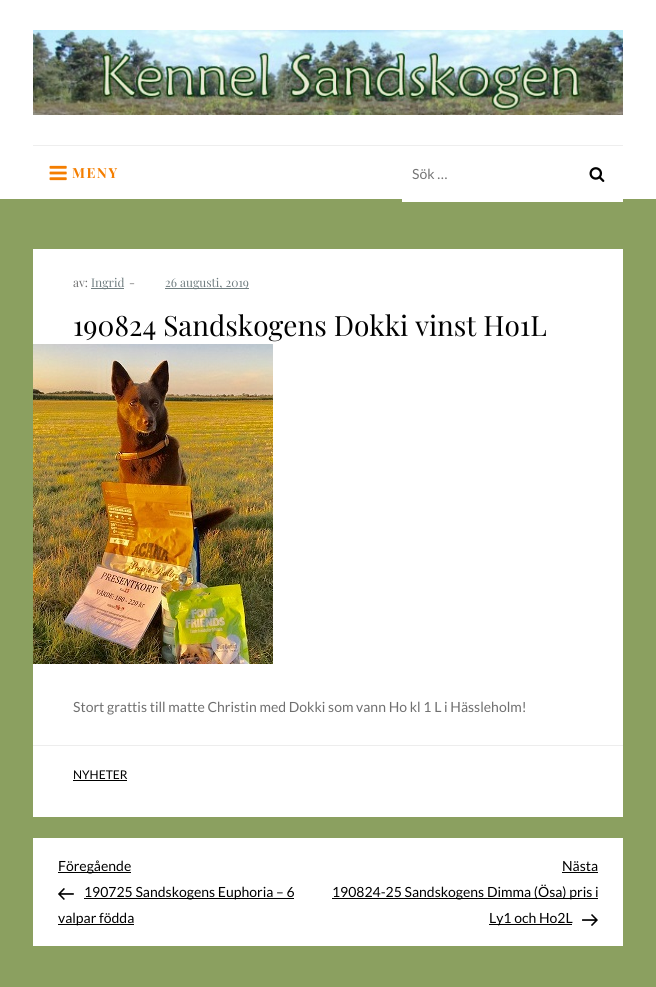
#include <cairo/cairo.h>
#include <math.h>
#include <stddef.h>


static void draw_spaced(cairo_t *cr, double x, double y, const char *s, double letter, double word) {
  cairo_move_to(cr, x, y);
  while (*s) {
    char ch[5] = {0};
    int n = 0;
    do ch[n++] = *s++; while ((*s & 0xC0) == 0x80);
    cairo_show_text(cr, ch);
    cairo_rel_move_to(cr, letter + word * (*ch == ' '), 0);
  }
}

static void draw_image(cairo_t *cr, const char *path, double x, double y, double w, double h) {
  cairo_surface_t *image = cairo_image_surface_create_from_png(path);
  cairo_save(cr);
  cairo_set_source_surface(cr, image, x, y);
  cairo_rectangle(cr, x, y, w, h);
  cairo_fill(cr);
  cairo_restore(cr);
  cairo_surface_destroy(image);
}

static void draw(cairo_t *cr) {
  cairo_set_source_rgb(cr, 139 / 255.0, 160 / 255.0, 96 / 255.0);
  cairo_paint(cr);
  cairo_set_source_rgb(cr, 1, 1, 1);
  cairo_rectangle(cr, 0, 0, 656, 199);
  cairo_fill(cr);
  cairo_set_source_rgb(cr, 238 / 255.0, 238 / 255.0, 238 / 255.0);
  cairo_rectangle(cr, 33, 145, 590, 1);
  cairo_fill(cr);
  draw_image(cr, "images/1.png", 33, 30, 590, 85);
  draw_image(cr, "images/2.png", 49, 165, 18, 16);
  cairo_set_source_rgb(cr, 1, 1, 1);
  cairo_rectangle(cr, 402, 199, 221, 3);
  cairo_fill(cr);
  draw_image(cr, "images/3.png", 589, 167, 16, 15);
  cairo_rectangle(cr, 33, 249, 590, 568);
  cairo_fill(cr);
  cairo_set_source_rgb(cr, 113 / 255.0, 126 / 255.0, 129 / 255.0);
  cairo_rectangle(cr, 91, 288, 33, 1);
  cairo_fill(cr);
  cairo_rectangle(cr, 165, 288, 84, 1);
  cairo_fill(cr);
  draw_image(cr, "images/4.png", 33, 344, 240, 320);
  cairo_set_source_rgb(cr, 237 / 255.0, 237 / 255.0, 237 / 255.0);
  cairo_rectangle(cr, 33, 745, 590, 1);
  cairo_fill(cr);
  cairo_set_source_rgb(cr, 0, 0, 0);
  cairo_rectangle(cr, 73, 780, 54, 1);
  cairo_fill(cr);
  cairo_set_source_rgb(cr, 1, 1, 1);
  cairo_rectangle(cr, 33, 838, 590, 108);
  cairo_fill(cr);
  cairo_set_source_rgb(cr, 0, 0, 0);
  cairo_rectangle(cr, 58, 872, 73, 1);
  cairo_fill(cr);
  draw_image(cr, "images/5.png", 58, 888, 16, 12);
  cairo_rectangle(cr, 84, 898, 210, 1);
  cairo_fill(cr);
  cairo_rectangle(cr, 58, 924, 76, 1);
  cairo_fill(cr);
  cairo_rectangle(cr, 562, 872, 36, 1);
  cairo_fill(cr);
  cairo_rectangle(cr, 332, 898, 266, 1);
  cairo_fill(cr);
  cairo_rectangle(cr, 489, 924, 83, 1);
  cairo_fill(cr);
  draw_image(cr, "images/6.png", 582, 914, 16, 12);
  cairo_select_font_face(cr, "Playfair Display", CAIRO_FONT_SLANT_NORMAL, CAIRO_FONT_WEIGHT_BOLD);
  cairo_set_font_size(cr, 14);
  cairo_set_source_rgb(cr, 244 / 255.0, 126 / 255.0, 0);
  draw_spaced(cr, 72, 178, "MENY", 1.5, 0);
  cairo_select_font_face(cr, "Lato", CAIRO_FONT_SLANT_NORMAL, CAIRO_FONT_WEIGHT_NORMAL);
  cairo_set_source_rgb(cr, 117 / 255.0, 117 / 255.0, 117 / 255.0);
  cairo_move_to(cr, 412, 179);
  cairo_show_text(cr, "Sök …");
  cairo_select_font_face(cr, "Playfair Display", CAIRO_FONT_SLANT_NORMAL, CAIRO_FONT_WEIGHT_NORMAL);
  cairo_set_font_size(cr, 12);
  cairo_set_source_rgb(cr, 111 / 255.0, 111 / 255.0, 111 / 255.0);
  cairo_move_to(cr, 73, 287);
  cairo_show_text(cr, "av:");
  cairo_set_source_rgb(cr, 113 / 255.0, 126 / 255.0, 129 / 255.0);
  cairo_move_to(cr, 91, 287);
  cairo_show_text(cr, "Ingrid");
  cairo_set_source_rgb(cr, 111 / 255.0, 111 / 255.0, 111 / 255.0);
  cairo_move_to(cr, 129, 287);
  cairo_show_text(cr, "-");
  cairo_set_source_rgb(cr, 113 / 255.0, 126 / 255.0, 129 / 255.0);
  cairo_move_to(cr, 165, 287);
  cairo_show_text(cr, "26 augusti, 2019");
  cairo_set_font_size(cr, 28);
  cairo_set_source_rgb(cr, 0, 0, 0);
  cairo_move_to(cr, 73, 336);
  cairo_show_text(cr, "190824 Sandskogens Dokki vinst Ho1L");
  cairo_select_font_face(cr, "Lato", CAIRO_FONT_SLANT_NORMAL, CAIRO_FONT_WEIGHT_NORMAL);
  cairo_set_font_size(cr, 14);
  cairo_set_source_rgb(cr, 111 / 255.0, 111 / 255.0, 111 / 255.0);
  cairo_move_to(cr, 73, 712);
  cairo_show_text(cr, "Stort grattis till matte Christin med Dokki som vann Ho kl 1 L i Hässleholm!");
  cairo_set_font_size(cr, 12);
  cairo_set_source_rgb(cr, 0, 0, 0);
  cairo_move_to(cr, 73, 779);
  cairo_show_text(cr, "NYHETER");
  cairo_set_font_size(cr, 14);
  cairo_move_to(cr, 58, 871);
  cairo_show_text(cr, "Föregående");
  cairo_move_to(cr, 84, 897);
  cairo_show_text(cr, "190725 Sandskogens Euphoria – 6");
  cairo_move_to(cr, 58, 923);
  cairo_show_text(cr, "valpar födda");
  cairo_move_to(cr, 562, 871);
  cairo_show_text(cr, "Nästa");
  cairo_move_to(cr, 332, 897);
  cairo_show_text(cr, "190824-25 Sandskogens Dimma (Ösa) pris i");
  cairo_move_to(cr, 489, 923);
  cairo_show_text(cr, "Ly1 och Ho2L");
}

int main(void) {
  cairo_surface_t *surface = cairo_image_surface_create(CAIRO_FORMAT_RGB24, 656, 987);
  cairo_t *cr = cairo_create(surface);
  cairo_font_options_t *options = cairo_font_options_create();
  cairo_font_options_set_hint_metrics(options, CAIRO_HINT_METRICS_OFF);
  cairo_font_options_set_hint_style(options, CAIRO_HINT_STYLE_NONE);
  cairo_set_font_options(cr, options);
  cairo_set_miter_limit(cr, 4);
  draw(cr);
  cairo_surface_write_to_png(surface, "out.png");
  cairo_font_options_destroy(options);
  cairo_destroy(cr);
  cairo_surface_destroy(surface);
  return 0;
}
